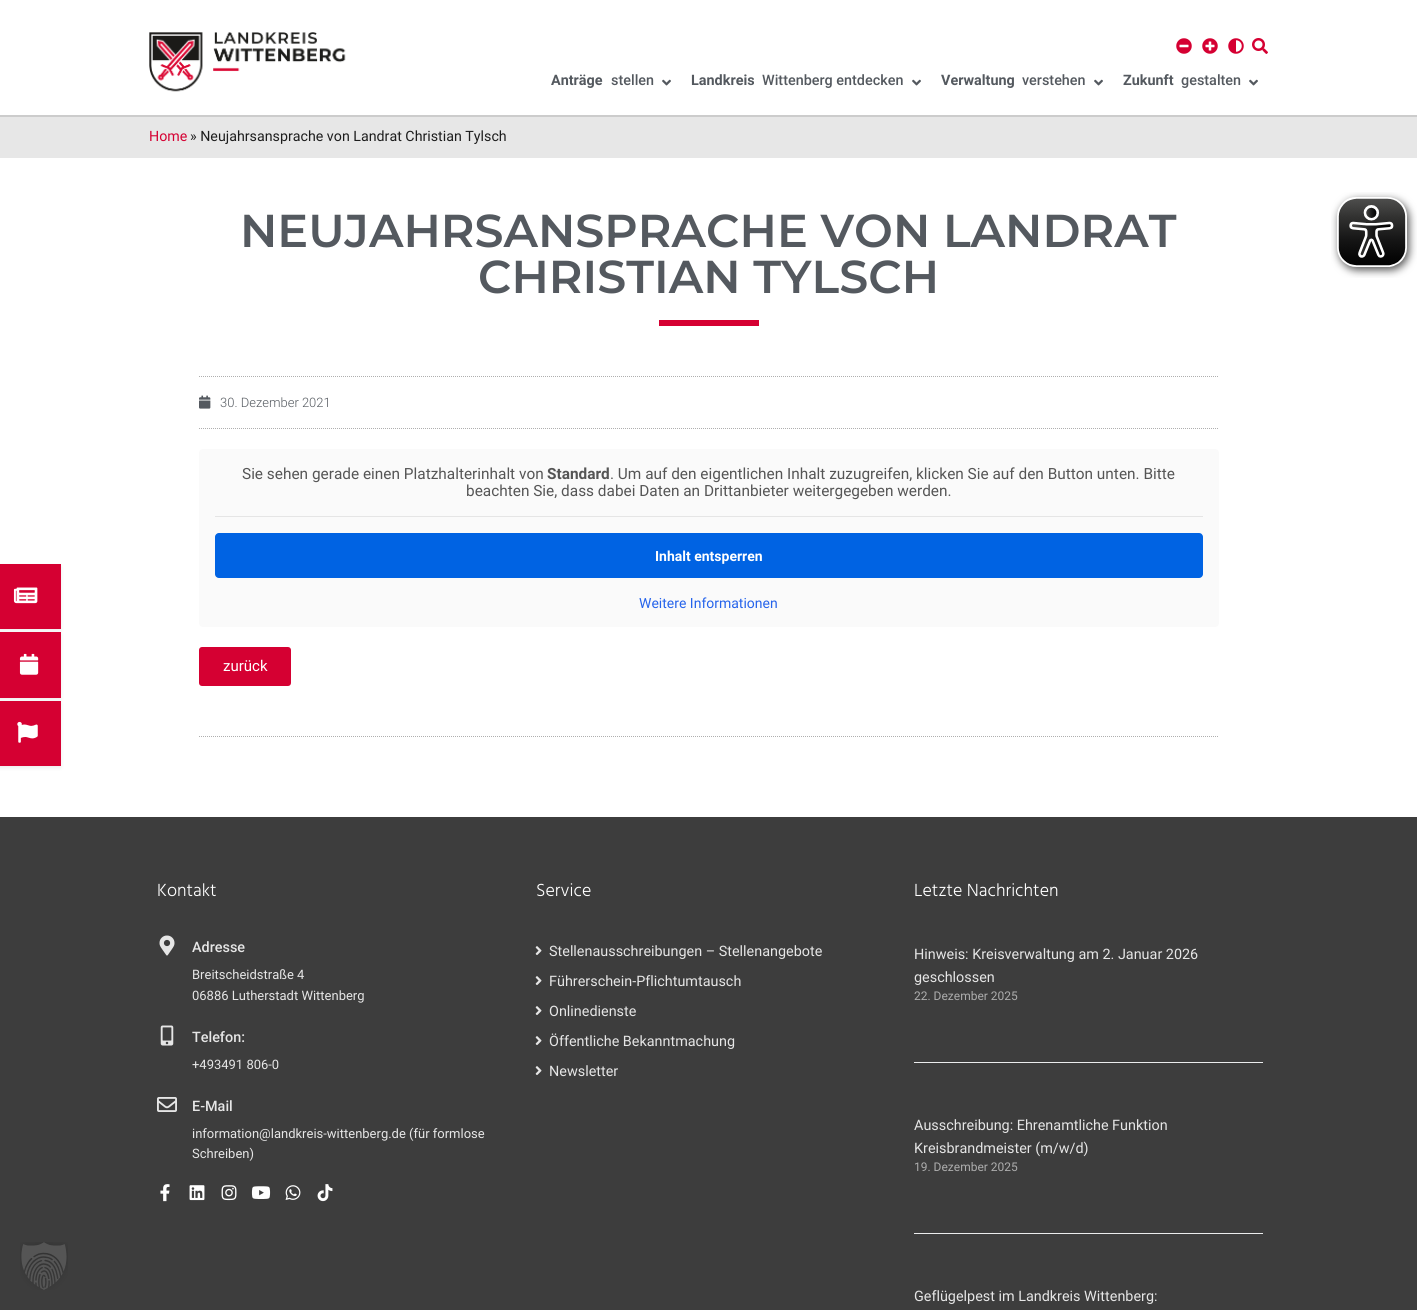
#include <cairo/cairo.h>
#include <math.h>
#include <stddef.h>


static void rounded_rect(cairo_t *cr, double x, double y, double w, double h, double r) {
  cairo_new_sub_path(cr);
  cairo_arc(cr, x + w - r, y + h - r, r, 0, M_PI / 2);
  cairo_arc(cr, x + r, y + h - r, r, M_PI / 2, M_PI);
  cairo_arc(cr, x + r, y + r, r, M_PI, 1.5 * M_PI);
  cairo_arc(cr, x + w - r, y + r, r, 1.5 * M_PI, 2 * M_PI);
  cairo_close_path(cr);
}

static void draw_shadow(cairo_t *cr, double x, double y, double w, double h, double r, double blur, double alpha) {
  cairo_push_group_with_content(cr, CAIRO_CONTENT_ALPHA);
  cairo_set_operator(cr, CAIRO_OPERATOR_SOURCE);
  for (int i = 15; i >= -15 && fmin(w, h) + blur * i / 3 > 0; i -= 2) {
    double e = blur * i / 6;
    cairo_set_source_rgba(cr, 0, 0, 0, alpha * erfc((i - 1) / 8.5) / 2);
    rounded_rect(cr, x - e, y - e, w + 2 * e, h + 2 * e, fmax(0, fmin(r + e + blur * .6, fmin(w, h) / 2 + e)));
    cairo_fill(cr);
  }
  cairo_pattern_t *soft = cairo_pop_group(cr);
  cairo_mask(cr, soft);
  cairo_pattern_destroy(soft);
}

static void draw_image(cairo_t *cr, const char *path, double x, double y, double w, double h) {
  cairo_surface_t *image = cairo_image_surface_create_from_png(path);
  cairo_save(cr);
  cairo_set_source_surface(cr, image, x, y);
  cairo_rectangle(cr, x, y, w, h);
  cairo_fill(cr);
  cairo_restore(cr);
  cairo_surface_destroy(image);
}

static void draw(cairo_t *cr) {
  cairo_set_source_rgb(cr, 1, 1, 1);
  cairo_paint(cr);
  cairo_set_source_rgb(cr, 204 / 255.0, 204 / 255.0, 204 / 255.0);
  cairo_rectangle(cr, 0, 115, 1417, 2);
  cairo_fill(cr);
  draw_image(cr, "images/1.png", 149, 32, 197, 60);
  draw_image(cr, "images/2.png", 1176, 38, 16, 16);
  draw_image(cr, "images/3.png", 1202, 38, 16, 16);
  draw_image(cr, "images/4.png", 1228, 38, 16, 16);
  draw_image(cr, "images/5.png", 1252, 38, 16, 16);
  draw_image(cr, "images/6.png", 662, 79, 9, 7);
  draw_image(cr, "images/6.png", 912, 79, 9, 7);
  draw_image(cr, "images/6.png", 1094, 79, 9, 7);
  draw_image(cr, "images/6.png", 1249, 79, 9, 7);
  cairo_set_source_rgb(cr, 0, 0, 0);
  draw_shadow(cr, -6, 566, 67, 65, 0, 2, 0.07);
  cairo_set_source_rgb(cr, 213 / 255.0, 0, 50 / 255.0);
  cairo_rectangle(cr, 0, 564, 61, 65);
  cairo_fill(cr);
  draw_image(cr, "images/7.png", 13, 587, 25, 17);
  cairo_set_source_rgb(cr, 0, 0, 0);
  draw_shadow(cr, -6, 634, 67, 66, 0, 2, 0.07);
  cairo_set_source_rgb(cr, 213 / 255.0, 0, 50 / 255.0);
  cairo_rectangle(cr, 0, 632, 61, 66);
  cairo_fill(cr);
  draw_image(cr, "images/8.png", 19, 653, 20, 22);
  cairo_set_source_rgb(cr, 0, 0, 0);
  draw_shadow(cr, -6, 703, 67, 65, 0, 2, 0.07);
  cairo_set_source_rgb(cr, 213 / 255.0, 0, 50 / 255.0);
  cairo_rectangle(cr, 0, 701, 61, 65);
  cairo_fill(cr);
  draw_image(cr, "images/9.png", 17, 721, 21, 22);
  cairo_set_source_rgb(cr, 231 / 255.0, 231 / 255.0, 231 / 255.0);
  cairo_rectangle(cr, 0, 117, 1417, 41);
  cairo_fill(cr);
  cairo_set_source_rgb(cr, 213 / 255.0, 0, 50 / 255.0);
  cairo_rectangle(cr, 659, 320, 100, 6);
  cairo_fill(cr);
  cairo_new_path(cr);
  cairo_move_to(cr, 199, 376.5);
  cairo_line_to(cr, 1219, 376.5);
  cairo_set_source_rgb(cr, 175 / 255.0, 175 / 255.0, 175 / 255.0);
  cairo_set_line_width(cr, 1);
  cairo_set_dash(cr, (double[]){1, 1}, 2, 0);
  cairo_stroke(cr);
  cairo_new_path(cr);
  cairo_move_to(cr, 199, 428.5);
  cairo_line_to(cr, 1219, 428.5);
  cairo_stroke(cr);
  draw_image(cr, "images/10.png", 199, 395, 12, 14);
  cairo_set_source_rgb(cr, 250 / 255.0, 250 / 255.0, 250 / 255.0);
  rounded_rect(cr, 199, 449, 1020, 178, 4);
  cairo_fill(cr);
  cairo_set_source_rgb(cr, 229 / 255.0, 229 / 255.0, 229 / 255.0);
  cairo_rectangle(cr, 215, 516, 988, 1);
  cairo_fill(cr);
  cairo_set_source_rgb(cr, 0, 99 / 255.0, 227 / 255.0);
  rounded_rect(cr, 215, 533, 988, 45, 4);
  cairo_fill(cr);
  cairo_set_source_rgb(cr, 213 / 255.0, 0, 50 / 255.0);
  rounded_rect(cr, 199, 647, 92, 39, 3);
  cairo_fill(cr);
  cairo_new_path(cr);
  cairo_move_to(cr, 199, 736.5);
  cairo_line_to(cr, 1219, 736.5);
  cairo_set_source_rgb(cr, 175 / 255.0, 175 / 255.0, 175 / 255.0);
  cairo_stroke(cr);
  cairo_set_source_rgb(cr, 61 / 255.0, 61 / 255.0, 61 / 255.0);
  cairo_rectangle(cr, 0, 817, 1417, 493);
  cairo_fill(cr);
  draw_image(cr, "images/11.png", 159, 935, 16, 21);
  draw_image(cr, "images/12.png", 160, 1025, 14, 21);
  draw_image(cr, "images/13.png", 157, 1097, 20, 15);
  draw_image(cr, "images/14.png", 160, 1184, 10, 18);
  draw_image(cr, "images/15.png", 189, 1185, 16, 16);
  draw_image(cr, "images/16.png", 221, 1185, 16, 16);
  draw_image(cr, "images/17.png", 251, 1186, 20, 13);
  draw_image(cr, "images/18.png", 285, 1185, 16, 15);
  draw_image(cr, "images/19.png", 317, 1184, 16, 18);
  draw_image(cr, "images/20.png", 535, 946, 7, 9);
  draw_image(cr, "images/20.png", 535, 976, 7, 9);
  draw_image(cr, "images/20.png", 535, 1006, 7, 9);
  draw_image(cr, "images/20.png", 535, 1036, 7, 9);
  draw_image(cr, "images/20.png", 535, 1066, 7, 9);
  cairo_set_source_rgb(cr, 235 / 255.0, 236 / 255.0, 237 / 255.0);
  cairo_rectangle(cr, 914, 1062, 349, 1);
  cairo_fill(cr);
  cairo_rectangle(cr, 914, 1233, 349, 1);
  cairo_fill(cr);
  draw_image(cr, "images/21.png", 1331, 192, 86, 86);
  draw_image(cr, "images/22.png", 20, 1242, 48, 48);
  cairo_select_font_face(cr, "Roboto", CAIRO_FONT_SLANT_NORMAL, CAIRO_FONT_WEIGHT_BOLD);
  cairo_set_font_size(cr, 14.4);
  cairo_set_source_rgb(cr, 84 / 255.0, 89 / 255.0, 95 / 255.0);
  cairo_move_to(cr, 551, 85);
  cairo_show_text(cr, "Anträge");
  cairo_select_font_face(cr, "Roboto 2 Medium", CAIRO_FONT_SLANT_NORMAL, CAIRO_FONT_WEIGHT_NORMAL);
  cairo_move_to(cr, 611, 85);
  cairo_show_text(cr, "stellen");
  cairo_select_font_face(cr, "Roboto", CAIRO_FONT_SLANT_NORMAL, CAIRO_FONT_WEIGHT_BOLD);
  cairo_move_to(cr, 691, 85);
  cairo_show_text(cr, "Landkreis");
  cairo_select_font_face(cr, "Roboto 2 Medium", CAIRO_FONT_SLANT_NORMAL, CAIRO_FONT_WEIGHT_NORMAL);
  cairo_move_to(cr, 762, 85);
  cairo_show_text(cr, "Wittenberg entdecken");
  cairo_select_font_face(cr, "Roboto", CAIRO_FONT_SLANT_NORMAL, CAIRO_FONT_WEIGHT_BOLD);
  cairo_move_to(cr, 941, 85);
  cairo_show_text(cr, "Verwaltung");
  cairo_select_font_face(cr, "Roboto 2 Medium", CAIRO_FONT_SLANT_NORMAL, CAIRO_FONT_WEIGHT_NORMAL);
  cairo_move_to(cr, 1022, 85);
  cairo_show_text(cr, "verstehen");
  cairo_select_font_face(cr, "Roboto", CAIRO_FONT_SLANT_NORMAL, CAIRO_FONT_WEIGHT_BOLD);
  cairo_move_to(cr, 1123, 85);
  cairo_show_text(cr, "Zukunft");
  cairo_select_font_face(cr, "Roboto 2 Medium", CAIRO_FONT_SLANT_NORMAL, CAIRO_FONT_WEIGHT_NORMAL);
  cairo_move_to(cr, 1181, 85);
  cairo_show_text(cr, "gestalten");
  cairo_select_font_face(cr, "Roboto", CAIRO_FONT_SLANT_NORMAL, CAIRO_FONT_WEIGHT_NORMAL);
  cairo_set_font_size(cr, 14.25);
  cairo_set_source_rgb(cr, 213 / 255.0, 0, 50 / 255.0);
  cairo_move_to(cr, 149, 141);
  cairo_show_text(cr, "Home");
  cairo_set_source_rgb(cr, 29 / 255.0, 29 / 255.0, 29 / 255.0);
  cairo_move_to(cr, 190, 141);
  cairo_show_text(cr, "» Neujahrsansprache von Landrat Christian Tylsch");
  cairo_select_font_face(cr, "Montserrat SemiBold", CAIRO_FONT_SLANT_NORMAL, CAIRO_FONT_WEIGHT_NORMAL);
  cairo_set_font_size(cr, 46.1);
  cairo_set_source_rgb(cr, 84 / 255.0, 89 / 255.0, 95 / 255.0);
  cairo_move_to(cr, 240, 247);
  cairo_show_text(cr, "NEUJAHRSANSPRACHE VON LANDRAT");
  cairo_move_to(cr, 478, 293);
  cairo_show_text(cr, "CHRISTIAN TYLSCH");
  cairo_select_font_face(cr, "Roboto Light", CAIRO_FONT_SLANT_NORMAL, CAIRO_FONT_WEIGHT_NORMAL);
  cairo_set_font_size(cr, 13);
  cairo_move_to(cr, 220, 407);
  cairo_show_text(cr, "30. Dezember 2021");
  cairo_select_font_face(cr, "Roboto", CAIRO_FONT_SLANT_NORMAL, CAIRO_FONT_WEIGHT_NORMAL);
  cairo_set_font_size(cr, 15.4);
  cairo_set_source_rgb(cr, 85 / 255.0, 85 / 255.0, 85 / 255.0);
  cairo_move_to(cr, 242, 479);
  cairo_show_text(cr, "Sie sehen gerade einen Platzhalterinhalt von");
  cairo_select_font_face(cr, "Roboto", CAIRO_FONT_SLANT_NORMAL, CAIRO_FONT_WEIGHT_BOLD);
  cairo_move_to(cr, 547, 479);
  cairo_show_text(cr, "Standard");
  cairo_select_font_face(cr, "Roboto", CAIRO_FONT_SLANT_NORMAL, CAIRO_FONT_WEIGHT_NORMAL);
  cairo_move_to(cr, 610, 479);
  cairo_show_text(cr, ". Um auf den eigentlichen Inhalt zuzugreifen, klicken Sie auf den Button unten. Bitte");
  cairo_move_to(cr, 466, 496);
  cairo_show_text(cr, "beachten Sie, dass dabei Daten an Drittanbieter weitergegeben werden.");
  cairo_select_font_face(cr, "Roboto", CAIRO_FONT_SLANT_NORMAL, CAIRO_FONT_WEIGHT_BOLD);
  cairo_set_font_size(cr, 14);
  cairo_set_source_rgb(cr, 1, 1, 1);
  cairo_move_to(cr, 655, 561);
  cairo_show_text(cr, "Inhalt entsperren");
  cairo_select_font_face(cr, "Roboto", CAIRO_FONT_SLANT_NORMAL, CAIRO_FONT_WEIGHT_NORMAL);
  cairo_set_source_rgb(cr, 37 / 255.0, 99 / 255.0, 235 / 255.0);
  cairo_move_to(cr, 639, 608);
  cairo_show_text(cr, "Weitere Informationen");
  cairo_select_font_face(cr, "Roboto 2", CAIRO_FONT_SLANT_NORMAL, CAIRO_FONT_WEIGHT_NORMAL);
  cairo_set_font_size(cr, 15);
  cairo_set_source_rgb(cr, 1, 1, 1);
  cairo_move_to(cr, 223, 671);
  cairo_show_text(cr, "zurück");
  cairo_select_font_face(cr, "Hind Light", CAIRO_FONT_SLANT_NORMAL, CAIRO_FONT_WEIGHT_NORMAL);
  cairo_set_font_size(cr, 18);
  cairo_move_to(cr, 157, 896);
  cairo_show_text(cr, "Kontakt");
  cairo_select_font_face(cr, "Roboto Medium", CAIRO_FONT_SLANT_NORMAL, CAIRO_FONT_WEIGHT_NORMAL);
  cairo_set_font_size(cr, 14.4);
  cairo_set_source_rgb(cr, 230 / 255.0, 230 / 255.0, 230 / 255.0);
  cairo_move_to(cr, 192, 952);
  cairo_show_text(cr, "Adresse");
  cairo_select_font_face(cr, "Roboto", CAIRO_FONT_SLANT_NORMAL, CAIRO_FONT_WEIGHT_NORMAL);
  cairo_set_font_size(cr, 13);
  cairo_move_to(cr, 192, 979);
  cairo_show_text(cr, "Breitscheidstraße 4");
  cairo_move_to(cr, 192, 1000);
  cairo_show_text(cr, "06886 Lutherstadt Wittenberg");
  cairo_select_font_face(cr, "Roboto Medium", CAIRO_FONT_SLANT_NORMAL, CAIRO_FONT_WEIGHT_NORMAL);
  cairo_set_font_size(cr, 14.4);
  cairo_move_to(cr, 192, 1042);
  cairo_show_text(cr, "Telefon:");
  cairo_select_font_face(cr, "Roboto", CAIRO_FONT_SLANT_NORMAL, CAIRO_FONT_WEIGHT_NORMAL);
  cairo_set_font_size(cr, 13);
  cairo_move_to(cr, 192, 1069);
  cairo_show_text(cr, "+493491 806-0");
  cairo_select_font_face(cr, "Roboto Medium", CAIRO_FONT_SLANT_NORMAL, CAIRO_FONT_WEIGHT_NORMAL);
  cairo_set_font_size(cr, 14.4);
  cairo_move_to(cr, 192, 1111);
  cairo_show_text(cr, "E-Mail");
  cairo_select_font_face(cr, "Roboto", CAIRO_FONT_SLANT_NORMAL, CAIRO_FONT_WEIGHT_NORMAL);
  cairo_set_font_size(cr, 13);
  cairo_move_to(cr, 192, 1138);
  cairo_show_text(cr, "information@landkreis-wittenberg.de (für formlose");
  cairo_move_to(cr, 192, 1158);
  cairo_show_text(cr, "Schreiben)");
  cairo_select_font_face(cr, "Hind Light", CAIRO_FONT_SLANT_NORMAL, CAIRO_FONT_WEIGHT_NORMAL);
  cairo_set_font_size(cr, 18);
  cairo_set_source_rgb(cr, 1, 1, 1);
  cairo_move_to(cr, 536, 896);
  cairo_show_text(cr, "Service");
  cairo_select_font_face(cr, "Roboto", CAIRO_FONT_SLANT_NORMAL, CAIRO_FONT_WEIGHT_NORMAL);
  cairo_set_font_size(cr, 14.4);
  cairo_set_source_rgb(cr, 230 / 255.0, 230 / 255.0, 230 / 255.0);
  cairo_move_to(cr, 549, 956);
  cairo_show_text(cr, "Stellenausschreibungen – Stellenangebote");
  cairo_move_to(cr, 549, 986);
  cairo_show_text(cr, "Führerschein-Pflichtumtausch");
  cairo_move_to(cr, 549, 1016);
  cairo_show_text(cr, "Onlinedienste");
  cairo_move_to(cr, 549, 1046);
  cairo_show_text(cr, "Öffentliche Bekanntmachung");
  cairo_move_to(cr, 549, 1076);
  cairo_show_text(cr, "Newsletter");
  cairo_select_font_face(cr, "Hind Light", CAIRO_FONT_SLANT_NORMAL, CAIRO_FONT_WEIGHT_NORMAL);
  cairo_set_font_size(cr, 18);
  cairo_set_source_rgb(cr, 1, 1, 1);
  cairo_move_to(cr, 914, 896);
  cairo_show_text(cr, "Letzte Nachrichten");
  cairo_select_font_face(cr, "Roboto", CAIRO_FONT_SLANT_NORMAL, CAIRO_FONT_WEIGHT_NORMAL);
  cairo_set_font_size(cr, 14.4);
  cairo_set_source_rgb(cr, 230 / 255.0, 230 / 255.0, 230 / 255.0);
  cairo_move_to(cr, 914, 959);
  cairo_show_text(cr, "Hinweis: Kreisverwaltung am 2. Januar 2026");
  cairo_move_to(cr, 914, 982);
  cairo_show_text(cr, "geschlossen");
  cairo_set_font_size(cr, 12);
  cairo_set_source_rgb(cr, 173 / 255.0, 173 / 255.0, 173 / 255.0);
  cairo_move_to(cr, 914, 1000);
  cairo_show_text(cr, "22. Dezember 2025");
  cairo_set_font_size(cr, 14.4);
  cairo_set_source_rgb(cr, 230 / 255.0, 230 / 255.0, 230 / 255.0);
  cairo_move_to(cr, 914, 1130);
  cairo_show_text(cr, "Ausschreibung: Ehrenamtliche Funktion");
  cairo_move_to(cr, 914, 1153);
  cairo_show_text(cr, "Kreisbrandmeister (m/w/d)");
  cairo_set_font_size(cr, 12);
  cairo_set_source_rgb(cr, 173 / 255.0, 173 / 255.0, 173 / 255.0);
  cairo_move_to(cr, 914, 1171);
  cairo_show_text(cr, "19. Dezember 2025");
  cairo_set_font_size(cr, 14.4);
  cairo_set_source_rgb(cr, 230 / 255.0, 230 / 255.0, 230 / 255.0);
  cairo_move_to(cr, 914, 1301);
  cairo_show_text(cr, "Geflügelpest im Landkreis Wittenberg:");
}

int main(void) {
  cairo_surface_t *surface = cairo_image_surface_create(CAIRO_FORMAT_RGB24, 1417, 1310);
  cairo_t *cr = cairo_create(surface);
  cairo_font_options_t *options = cairo_font_options_create();
  cairo_font_options_set_hint_metrics(options, CAIRO_HINT_METRICS_OFF);
  cairo_font_options_set_hint_style(options, CAIRO_HINT_STYLE_NONE);
  cairo_set_font_options(cr, options);
  cairo_set_miter_limit(cr, 4);
  draw(cr);
  cairo_surface_write_to_png(surface, "out.png");
  cairo_font_options_destroy(options);
  cairo_destroy(cr);
  cairo_surface_destroy(surface);
  return 0;
}
